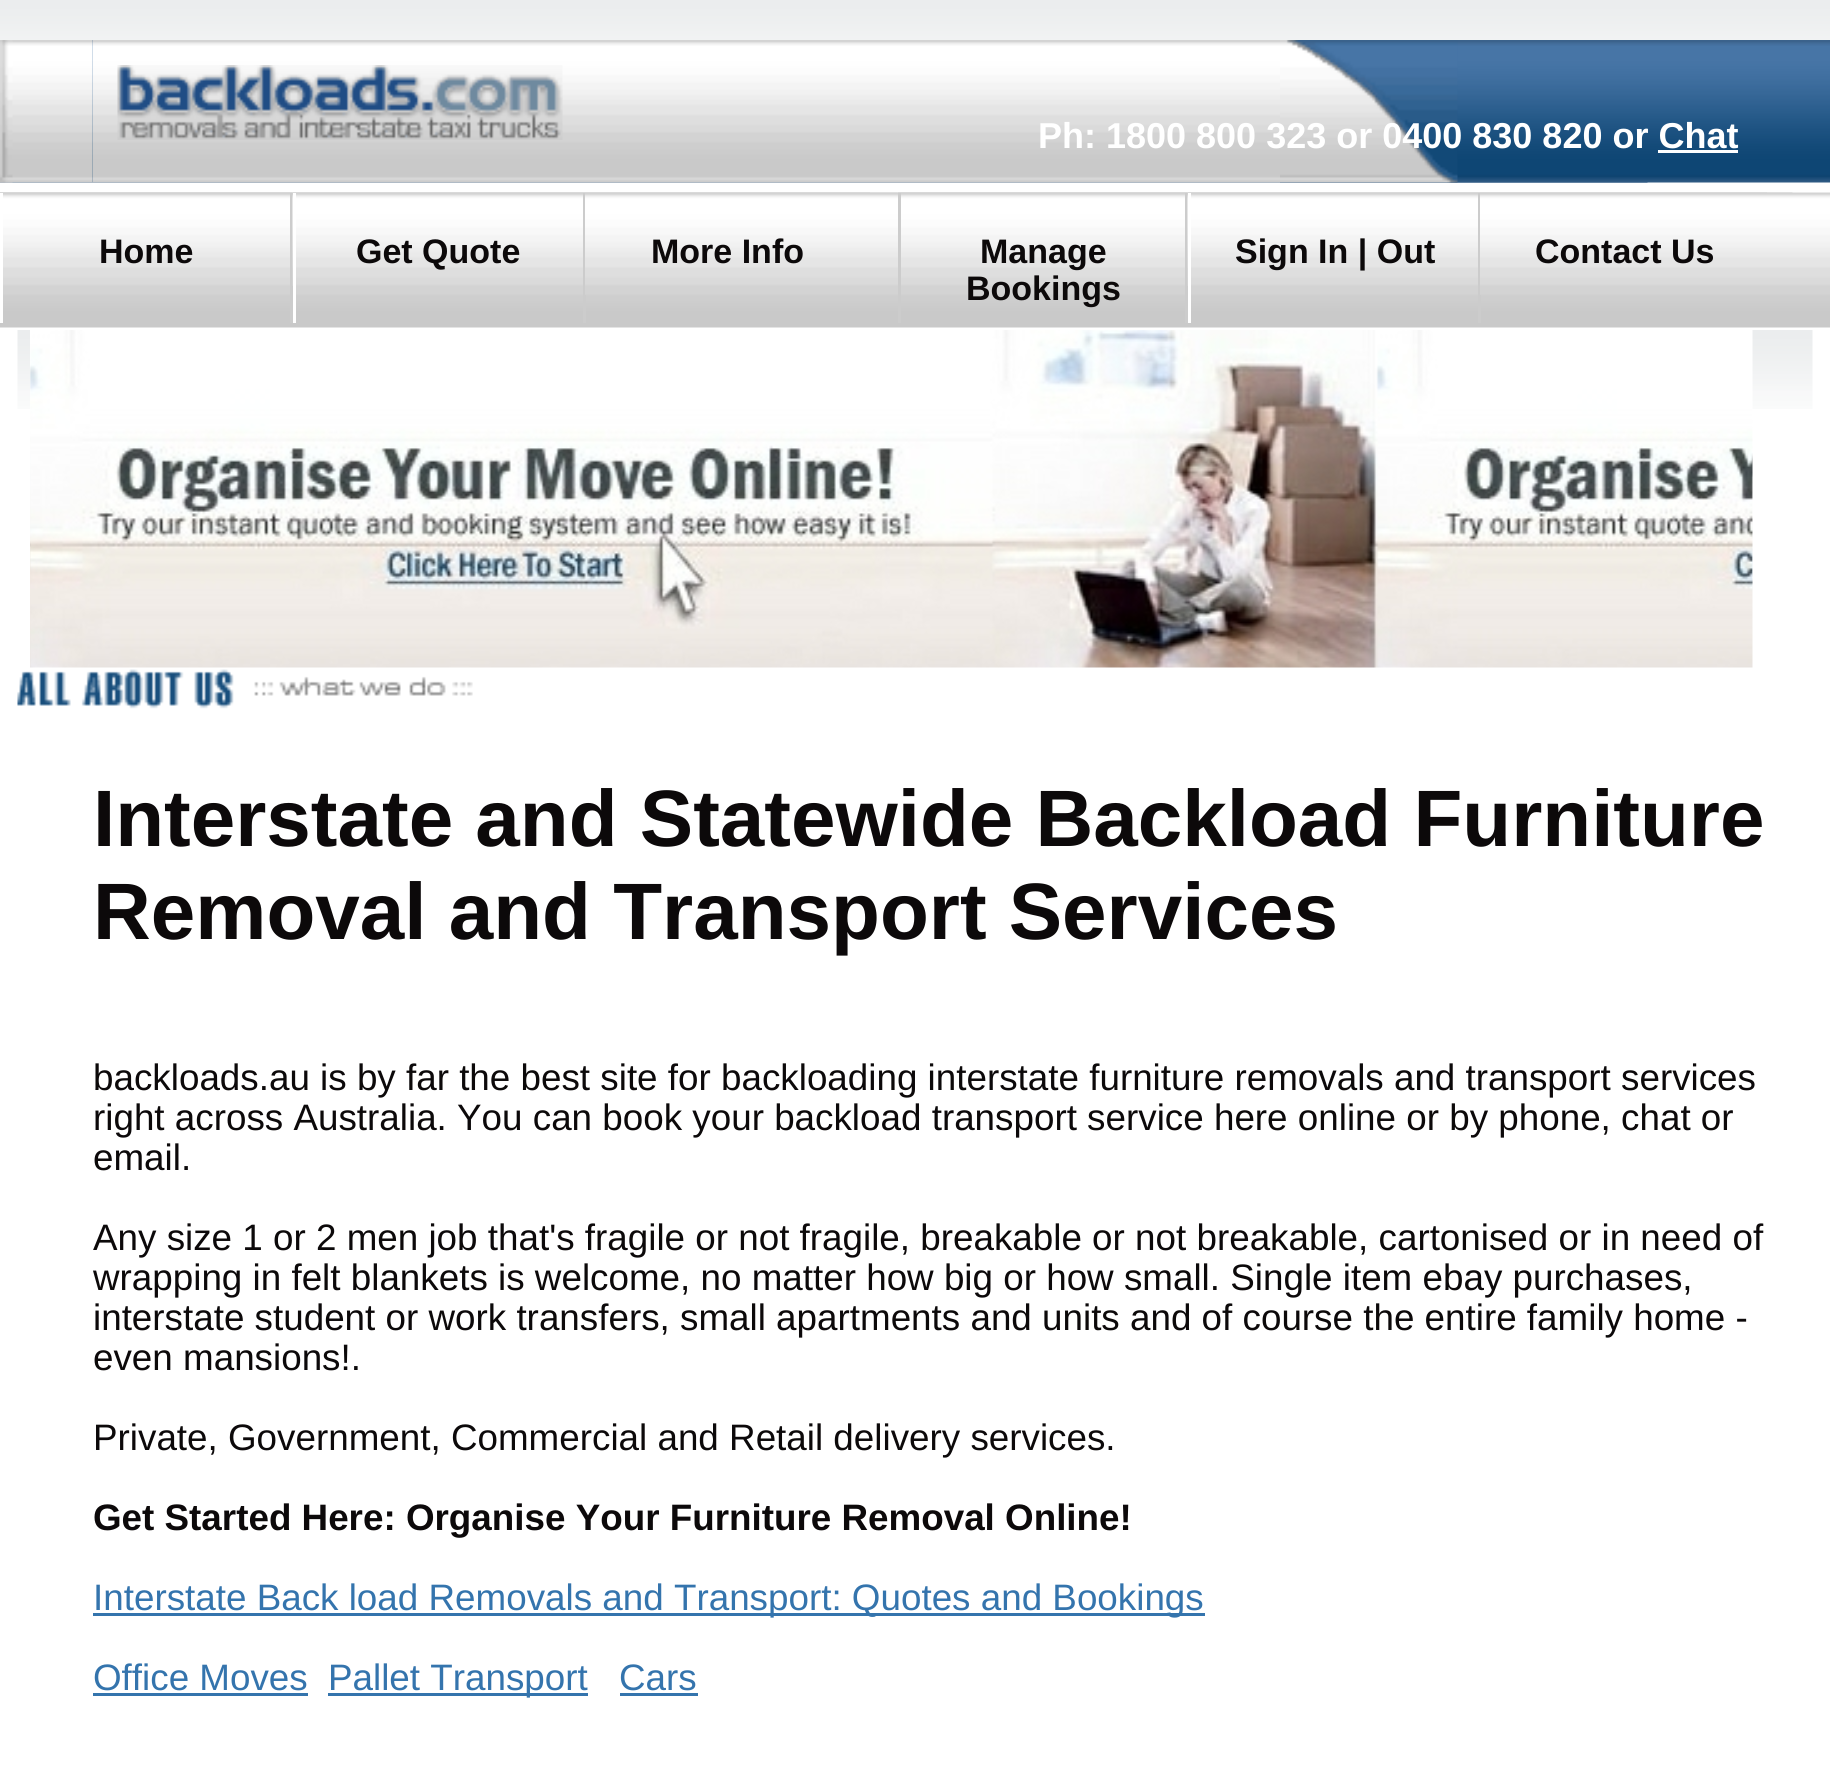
#include <cairo/cairo.h>
#include <math.h>
#include <stddef.h>


static void draw_image(cairo_t *cr, const char *path, double x, double y, double w, double h) {
  cairo_surface_t *image = cairo_image_surface_create_from_png(path);
  cairo_save(cr);
  cairo_set_source_surface(cr, image, x, y);
  cairo_rectangle(cr, x, y, w, h);
  cairo_fill(cr);
  cairo_restore(cr);
  cairo_surface_destroy(image);
}

static void draw(cairo_t *cr) {
  cairo_set_source_rgb(cr, 1, 1, 1);
  cairo_paint(cr);
  draw_image(cr, "images/1.png", 0, 0, 1830, 40);
  draw_image(cr, "images/2.png", 0, 40, 1830, 143);
  draw_image(cr, "images/3.png", 0, 40, 93, 143);
  draw_image(cr, "images/4.png", 0, 40, 13, 143);
  draw_image(cr, "images/5.png", 92, 40, 1188, 143);
  draw_image(cr, "images/6.png", 117, 65, 446, 75);
  draw_image(cr, "images/7.png", 1280, 182, 368, 1);
  draw_image(cr, "images/8.png", 1280, 40, 178, 143);
  cairo_set_source_rgb(cr, 1, 1, 1);
  cairo_rectangle(cr, 1658, 150, 80, 3);
  cairo_fill(cr);
  draw_image(cr, "images/9.png", 0, 192, 1830, 136);
  draw_image(cr, "images/10.png", 292, 192, 606, 1);
  cairo_set_source_rgb(cr, 216 / 255.0, 216 / 255.0, 216 / 255.0);
  cairo_rectangle(cr, 0, 192, 292, 1);
  cairo_fill(cr);
  cairo_set_source_rgb(cr, 204 / 255.0, 204 / 255.0, 204 / 255.0);
  cairo_rectangle(cr, 290, 193, 3, 130);
  cairo_fill(cr);
  cairo_set_source_rgb(cr, 1, 1, 1);
  cairo_rectangle(cr, 0, 193, 3, 130);
  cairo_fill(cr);
  draw_image(cr, "images/11.png", 292, 192, 293, 94);
  cairo_set_source_rgb(cr, 204 / 255.0, 204 / 255.0, 204 / 255.0);
  cairo_rectangle(cr, 583, 193, 3, 130);
  cairo_fill(cr);
  cairo_set_source_rgb(cr, 1, 1, 1);
  cairo_rectangle(cr, 293, 193, 3, 130);
  cairo_fill(cr);
  draw_image(cr, "images/12.png", 585, 192, 285, 103);
  draw_image(cr, "images/13.png", 897, 192, 896, 1);
  cairo_set_source_rgb(cr, 216 / 255.0, 216 / 255.0, 216 / 255.0);
  cairo_rectangle(cr, 898, 192, 289, 1);
  cairo_fill(cr);
  cairo_set_source_rgb(cr, 204 / 255.0, 204 / 255.0, 204 / 255.0);
  cairo_rectangle(cr, 1185, 193, 3, 130);
  cairo_fill(cr);
  cairo_rectangle(cr, 898, 193, 3, 130);
  cairo_fill(cr);
  draw_image(cr, "images/11.png", 1187, 192, 293, 94);
  cairo_rectangle(cr, 1478, 193, 3, 130);
  cairo_fill(cr);
  cairo_set_source_rgb(cr, 1, 1, 1);
  cairo_rectangle(cr, 1188, 193, 3, 130);
  cairo_fill(cr);
  draw_image(cr, "images/14.png", 1480, 192, 287, 103);
  draw_image(cr, "images/15.png", 17, 330, 1796, 79);
  draw_image(cr, "images/16.png", 30, 330, 1723, 338);
  draw_image(cr, "images/17.png", 17, 669, 456, 40);
  cairo_set_source_rgb(cr, 52 / 255.0, 116 / 255.0, 173 / 255.0);
  cairo_rectangle(cr, 93, 1613, 1112, 3);
  cairo_fill(cr);
  cairo_rectangle(cr, 93, 1693, 215, 3);
  cairo_fill(cr);
  cairo_rectangle(cr, 328, 1693, 260, 3);
  cairo_fill(cr);
  cairo_rectangle(cr, 620, 1693, 78, 3);
  cairo_fill(cr);
  cairo_select_font_face(cr, "Liberation Sans", CAIRO_FONT_SLANT_NORMAL, CAIRO_FONT_WEIGHT_BOLD);
  cairo_set_font_size(cr, 36);
  cairo_set_source_rgb(cr, 1, 1, 1);
  cairo_move_to(cr, 1038, 148);
  cairo_show_text(cr, "Ph: 1800 800 323 or 0400 830 820 or Chat");
  cairo_set_font_size(cr, 34);
  cairo_set_source_rgb(cr, 12 / 255.0, 9 / 255.0, 10 / 255.0);
  cairo_move_to(cr, 99, 263);
  cairo_show_text(cr, "Home");
  cairo_move_to(cr, 356, 263);
  cairo_show_text(cr, "Get Quote");
  cairo_move_to(cr, 651, 263);
  cairo_show_text(cr, "More Info");
  cairo_move_to(cr, 980, 263);
  cairo_show_text(cr, "Manage");
  cairo_move_to(cr, 966, 300);
  cairo_show_text(cr, "Bookings");
  cairo_move_to(cr, 1235, 263);
  cairo_show_text(cr, "Sign In | Out");
  cairo_move_to(cr, 1535, 263);
  cairo_show_text(cr, "Contact Us");
  cairo_set_font_size(cr, 80);
  cairo_move_to(cr, 93, 846);
  cairo_show_text(cr, "Interstate and Statewide Backload Furniture");
  cairo_move_to(cr, 93, 939);
  cairo_show_text(cr, "Removal and Transport Services");
  cairo_select_font_face(cr, "Liberation Sans", CAIRO_FONT_SLANT_NORMAL, CAIRO_FONT_WEIGHT_NORMAL);
  cairo_set_font_size(cr, 36.8);
  cairo_move_to(cr, 93, 1090);
  cairo_show_text(cr, "backloads.au is by far the best site for backloading interstate furniture removals and transport services");
  cairo_move_to(cr, 93, 1130);
  cairo_show_text(cr, "right across Australia. You can book your backload transport service here online or by phone, chat or");
  cairo_move_to(cr, 93, 1170);
  cairo_show_text(cr, "email.");
  cairo_move_to(cr, 93, 1250);
  cairo_show_text(cr, "Any size 1 or 2 men job that's fragile or not fragile, breakable or not breakable, cartonised or in need of");
  cairo_move_to(cr, 93, 1290);
  cairo_show_text(cr, "wrapping in felt blankets is welcome, no matter how big or how small. Single item ebay purchases,");
  cairo_move_to(cr, 93, 1330);
  cairo_show_text(cr, "interstate student or work transfers, small apartments and units and of course the entire family home -");
  cairo_move_to(cr, 93, 1370);
  cairo_show_text(cr, "even mansions!.");
  cairo_move_to(cr, 93, 1450);
  cairo_show_text(cr, "Private, Government, Commercial and Retail delivery services.");
  cairo_select_font_face(cr, "Liberation Sans", CAIRO_FONT_SLANT_NORMAL, CAIRO_FONT_WEIGHT_BOLD);
  cairo_move_to(cr, 93, 1530);
  cairo_show_text(cr, "Get Started Here: Organise Your Furniture Removal Online!");
  cairo_select_font_face(cr, "Liberation Sans", CAIRO_FONT_SLANT_NORMAL, CAIRO_FONT_WEIGHT_NORMAL);
  cairo_set_source_rgb(cr, 52 / 255.0, 116 / 255.0, 173 / 255.0);
  cairo_move_to(cr, 93, 1610);
  cairo_show_text(cr, "Interstate Back load Removals and Transport: Quotes and Bookings");
  cairo_move_to(cr, 93, 1690);
  cairo_show_text(cr, "Office Moves");
  cairo_move_to(cr, 328, 1690);
  cairo_show_text(cr, "Pallet Transport");
  cairo_move_to(cr, 619, 1690);
  cairo_show_text(cr, "Cars");
}

int main(void) {
  cairo_surface_t *surface = cairo_image_surface_create(CAIRO_FORMAT_RGB24, 1830, 1786);
  cairo_t *cr = cairo_create(surface);
  cairo_font_options_t *options = cairo_font_options_create();
  cairo_font_options_set_hint_metrics(options, CAIRO_HINT_METRICS_OFF);
  cairo_font_options_set_hint_style(options, CAIRO_HINT_STYLE_NONE);
  cairo_set_font_options(cr, options);
  cairo_set_miter_limit(cr, 4);
  draw(cr);
  cairo_surface_write_to_png(surface, "out.png");
  cairo_font_options_destroy(options);
  cairo_destroy(cr);
  cairo_surface_destroy(surface);
  return 0;
}
